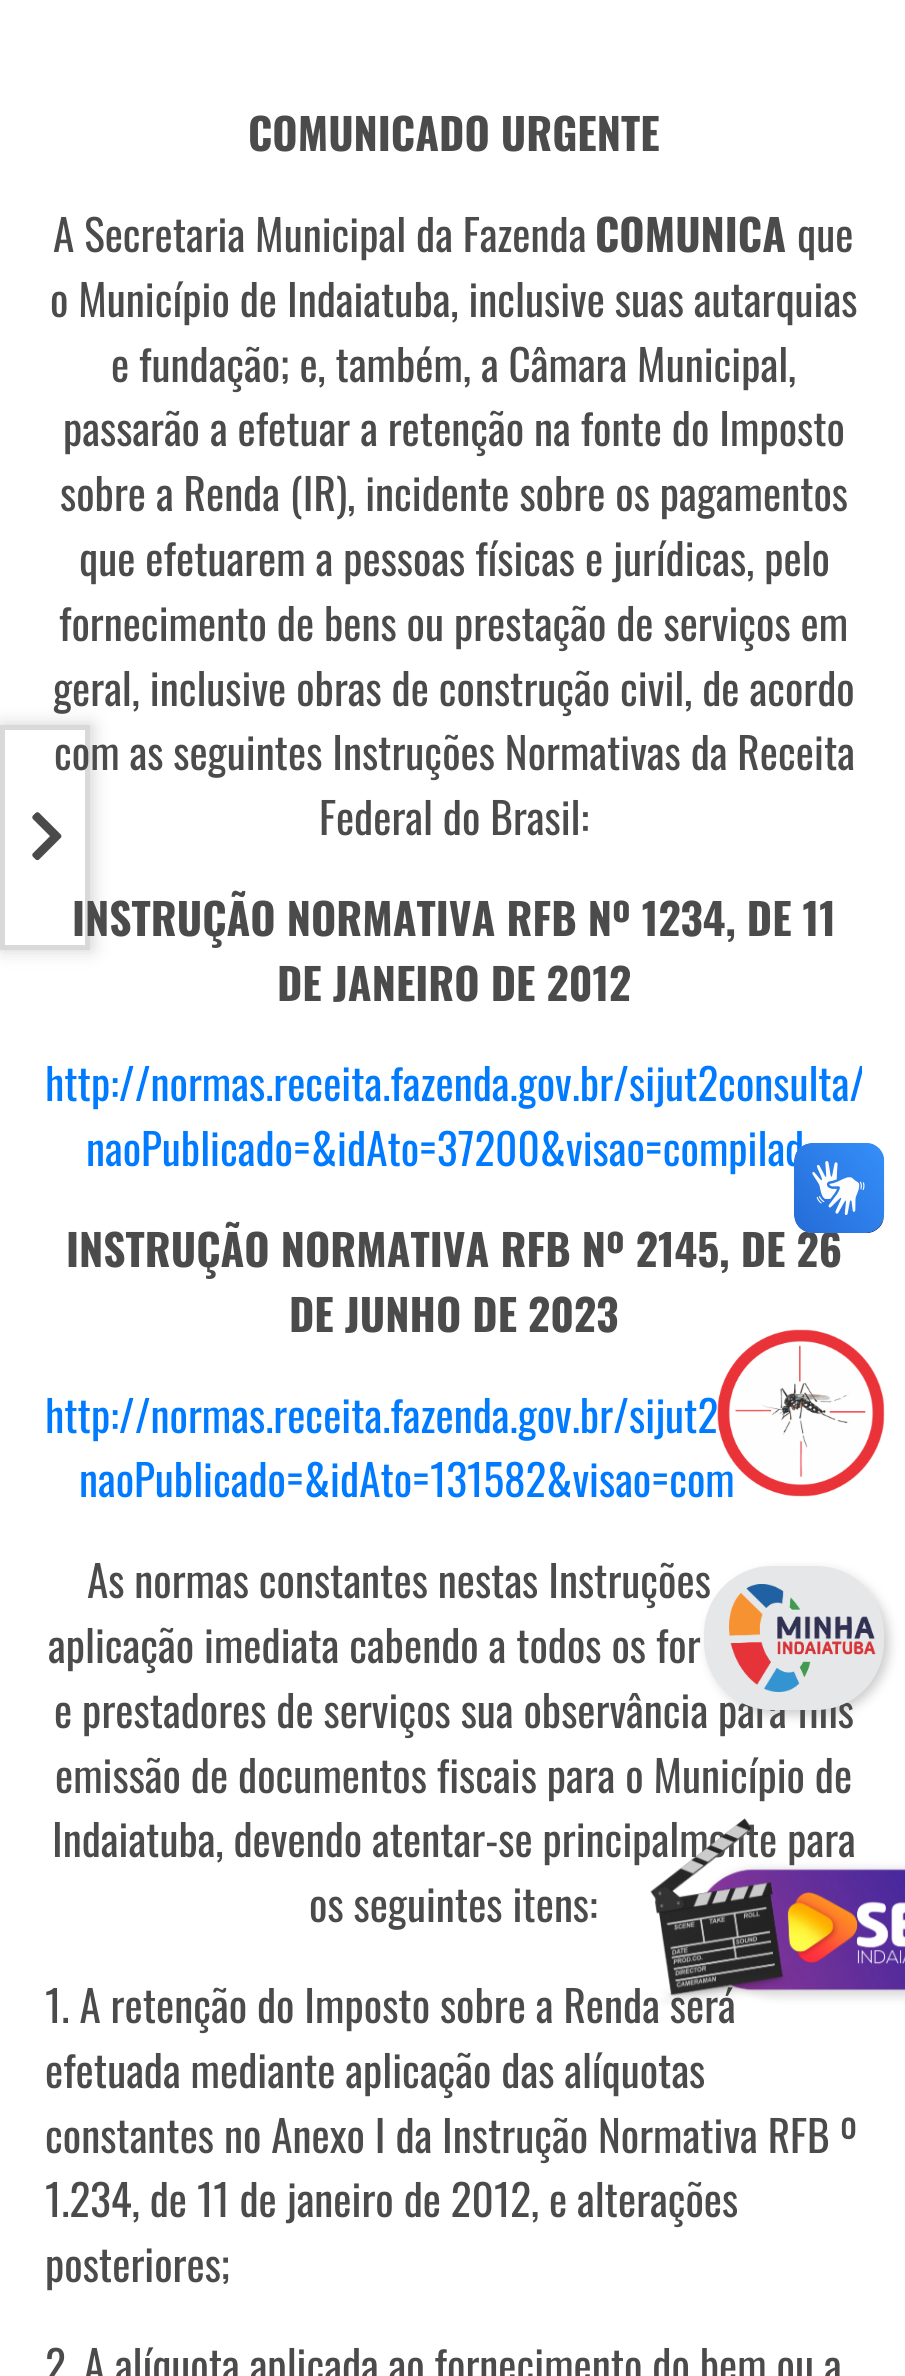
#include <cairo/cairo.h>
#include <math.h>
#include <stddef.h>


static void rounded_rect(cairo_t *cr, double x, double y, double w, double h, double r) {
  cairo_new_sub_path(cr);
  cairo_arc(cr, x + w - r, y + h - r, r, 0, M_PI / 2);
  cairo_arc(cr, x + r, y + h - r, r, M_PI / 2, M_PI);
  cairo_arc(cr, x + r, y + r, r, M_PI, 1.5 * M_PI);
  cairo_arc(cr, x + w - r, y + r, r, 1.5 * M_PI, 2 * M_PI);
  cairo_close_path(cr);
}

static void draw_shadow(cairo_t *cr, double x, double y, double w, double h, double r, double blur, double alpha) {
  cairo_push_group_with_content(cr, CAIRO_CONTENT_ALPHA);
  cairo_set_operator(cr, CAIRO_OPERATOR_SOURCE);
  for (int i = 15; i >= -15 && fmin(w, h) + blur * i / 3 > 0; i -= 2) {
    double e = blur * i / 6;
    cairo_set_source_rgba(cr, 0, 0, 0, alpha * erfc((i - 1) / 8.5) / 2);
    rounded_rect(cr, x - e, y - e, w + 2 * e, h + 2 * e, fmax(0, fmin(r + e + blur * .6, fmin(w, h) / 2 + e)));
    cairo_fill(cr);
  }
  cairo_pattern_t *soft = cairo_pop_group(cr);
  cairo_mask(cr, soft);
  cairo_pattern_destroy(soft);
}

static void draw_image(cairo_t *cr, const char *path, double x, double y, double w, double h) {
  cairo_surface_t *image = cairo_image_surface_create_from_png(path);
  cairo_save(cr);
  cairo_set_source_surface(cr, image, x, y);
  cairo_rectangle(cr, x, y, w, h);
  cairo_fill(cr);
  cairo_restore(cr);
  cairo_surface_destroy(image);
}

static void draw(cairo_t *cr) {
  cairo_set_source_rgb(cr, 1, 1, 1);
  cairo_paint(cr);
  cairo_set_source_rgb(cr, 0, 0, 0);
  draw_shadow(cr, 2, 725, 90, 225, 0, 9, 0.18);
  cairo_set_source_rgb(cr, 1, 1, 1);
  cairo_rectangle(cr, 2.5, 727.5, 85, 220);
  cairo_fill_preserve(cr);
  cairo_set_source_rgb(cr, 217 / 255.0, 217 / 255.0, 217 / 255.0);
  cairo_set_line_width(cr, 5);
  cairo_stroke(cr);
  draw_image(cr, "images/1.png", 32, 812, 30, 49);
  cairo_set_source_rgb(cr, 204 / 255.0, 204 / 255.0, 204 / 255.0);
  draw_shadow(cr, 709, 1571, 180, 144, 68, 5.5, 1);
  cairo_select_font_face(cr, "Oswald", CAIRO_FONT_SLANT_NORMAL, CAIRO_FONT_WEIGHT_BOLD);
  cairo_set_font_size(cr, 43.25);
  cairo_set_source_rgb(cr, 75 / 255.0, 75 / 255.0, 75 / 255.0);
  cairo_move_to(cr, 248, 151);
  cairo_show_text(cr, "COMUNICADO URGENTE");
  cairo_select_font_face(cr, "Oswald", CAIRO_FONT_SLANT_NORMAL, CAIRO_FONT_WEIGHT_NORMAL);
  cairo_move_to(cr, 53, 252);
  cairo_show_text(cr, "A Secretaria Municipal da Fazenda");
  cairo_select_font_face(cr, "Oswald", CAIRO_FONT_SLANT_NORMAL, CAIRO_FONT_WEIGHT_BOLD);
  cairo_move_to(cr, 595, 252);
  cairo_show_text(cr, "COMUNICA");
  cairo_select_font_face(cr, "Oswald", CAIRO_FONT_SLANT_NORMAL, CAIRO_FONT_WEIGHT_NORMAL);
  cairo_move_to(cr, 797, 252);
  cairo_show_text(cr, "que");
  cairo_move_to(cr, 50, 317);
  cairo_show_text(cr, "o Município de Indaiatuba, inclusive suas autarquias");
  cairo_move_to(cr, 111, 382);
  cairo_show_text(cr, "e fundação; e, também, a Câmara Municipal,");
  cairo_move_to(cr, 63, 446);
  cairo_show_text(cr, "passarão a efetuar a retenção na fonte do Imposto");
  cairo_move_to(cr, 60, 511);
  cairo_show_text(cr, "sobre a Renda (IR), incidente sobre os pagamentos");
  cairo_move_to(cr, 79, 576);
  cairo_show_text(cr, "que efetuarem a pessoas físicas e jurídicas, pelo");
  cairo_move_to(cr, 59, 641);
  cairo_show_text(cr, "fornecimento de bens ou prestação de serviços em");
  cairo_move_to(cr, 53, 706);
  cairo_show_text(cr, "geral, inclusive obras de construção civil, de acordo");
  cairo_move_to(cr, 54, 770);
  cairo_show_text(cr, "com as seguintes Instruções Normativas da Receita");
  cairo_move_to(cr, 319, 835);
  cairo_show_text(cr, "Federal do Brasil:");
  cairo_select_font_face(cr, "Oswald", CAIRO_FONT_SLANT_NORMAL, CAIRO_FONT_WEIGHT_BOLD);
  cairo_move_to(cr, 72, 936);
  cairo_show_text(cr, "INSTRUÇÃO NORMATIVA RFB Nº 1234, DE 11");
  cairo_move_to(cr, 277, 1001);
  cairo_show_text(cr, "DE JANEIRO DE 2012");
  cairo_save(cr);
  cairo_rectangle(cr, 45, 0, 817, 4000);
  cairo_clip(cr);
  cairo_select_font_face(cr, "Oswald", CAIRO_FONT_SLANT_NORMAL, CAIRO_FONT_WEIGHT_NORMAL);
  cairo_set_source_rgb(cr, 0, 123 / 255.0, 1);
  cairo_move_to(cr, 45, 1101);
  cairo_show_text(cr, "http://normas.receita.fazenda.gov.br/sijut2consulta/");
  cairo_restore(cr);
  cairo_select_font_face(cr, "Oswald", CAIRO_FONT_SLANT_NORMAL, CAIRO_FONT_WEIGHT_NORMAL);
  cairo_set_source_rgb(cr, 0, 123 / 255.0, 1);
  cairo_move_to(cr, 86, 1166);
  cairo_show_text(cr, "naoPublicado=&idAto=37200&visao=compilad");
  cairo_select_font_face(cr, "Oswald", CAIRO_FONT_SLANT_NORMAL, CAIRO_FONT_WEIGHT_BOLD);
  cairo_set_source_rgb(cr, 75 / 255.0, 75 / 255.0, 75 / 255.0);
  cairo_move_to(cr, 66, 1267);
  cairo_show_text(cr, "INSTRUÇÃO NORMATIVA RFB Nº 2145, DE 26");
  cairo_move_to(cr, 289, 1332);
  cairo_show_text(cr, "DE JUNHO DE 2023");
  cairo_select_font_face(cr, "Oswald", CAIRO_FONT_SLANT_NORMAL, CAIRO_FONT_WEIGHT_NORMAL);
  cairo_set_source_rgb(cr, 0, 123 / 255.0, 1);
  cairo_move_to(cr, 45, 1433);
  cairo_show_text(cr, "http://normas.receita.fazenda.gov.br/sijut2");
  cairo_move_to(cr, 79, 1497);
  cairo_show_text(cr, "naoPublicado=&idAto=131582&visao=com");
  cairo_set_source_rgb(cr, 75 / 255.0, 75 / 255.0, 75 / 255.0);
  cairo_move_to(cr, 87, 1598);
  cairo_show_text(cr, "As normas constantes nestas Instruções");
  cairo_move_to(cr, 48, 1663);
  cairo_show_text(cr, "aplicação imediata cabendo a todos os for");
  cairo_move_to(cr, 54, 1728);
  cairo_show_text(cr, "e prestadores de serviços sua observância para fins");
  cairo_move_to(cr, 55, 1793);
  cairo_show_text(cr, "emissão de documentos fiscais para o Município de");
  cairo_move_to(cr, 52, 1857);
  cairo_show_text(cr, "Indaiatuba, devendo atentar-se principalmente para");
  cairo_move_to(cr, 309, 1922);
  cairo_show_text(cr, "os seguintes itens:");
  cairo_move_to(cr, 45, 2023);
  cairo_show_text(cr, "1. A retenção do Imposto sobre a Renda será");
  cairo_move_to(cr, 45, 2088);
  cairo_show_text(cr, "efetuada mediante aplicação das alíquotas");
  cairo_move_to(cr, 45, 2153);
  cairo_show_text(cr, "constantes no Anexo I da Instrução Normativa RFB º");
  cairo_move_to(cr, 45, 2217);
  cairo_show_text(cr, "1.234, de 11 de janeiro de 2012, e alterações");
  cairo_move_to(cr, 45, 2282);
  cairo_show_text(cr, "posteriores;");
  cairo_move_to(cr, 45, 2383);
  cairo_show_text(cr, "2. A alíquota aplicada ao fornecimento do bem ou a");
  draw_image(cr, "images/2.png", 794, 1143, 91, 90);
  draw_image(cr, "images/3.png", 794, 1143, 90, 90);
  draw_image(cr, "images/4.png", 709, 1329, 176, 168);
  cairo_set_source_rgb(cr, 230 / 255.0, 231 / 255.0, 232 / 255.0);
  rounded_rect(cr, 704, 1566, 180, 144, 68);
  cairo_fill(cr);
  draw_image(cr, "images/5.png", 729, 1584, 147, 108);
  draw_image(cr, "images/6.png", 650, 1818, 255, 187);
}

int main(void) {
  cairo_surface_t *surface = cairo_image_surface_create(CAIRO_FORMAT_RGB24, 905, 2376);
  cairo_t *cr = cairo_create(surface);
  cairo_font_options_t *options = cairo_font_options_create();
  cairo_font_options_set_hint_metrics(options, CAIRO_HINT_METRICS_OFF);
  cairo_font_options_set_hint_style(options, CAIRO_HINT_STYLE_NONE);
  cairo_set_font_options(cr, options);
  cairo_set_miter_limit(cr, 4);
  draw(cr);
  cairo_surface_write_to_png(surface, "out.png");
  cairo_font_options_destroy(options);
  cairo_destroy(cr);
  cairo_surface_destroy(surface);
  return 0;
}
